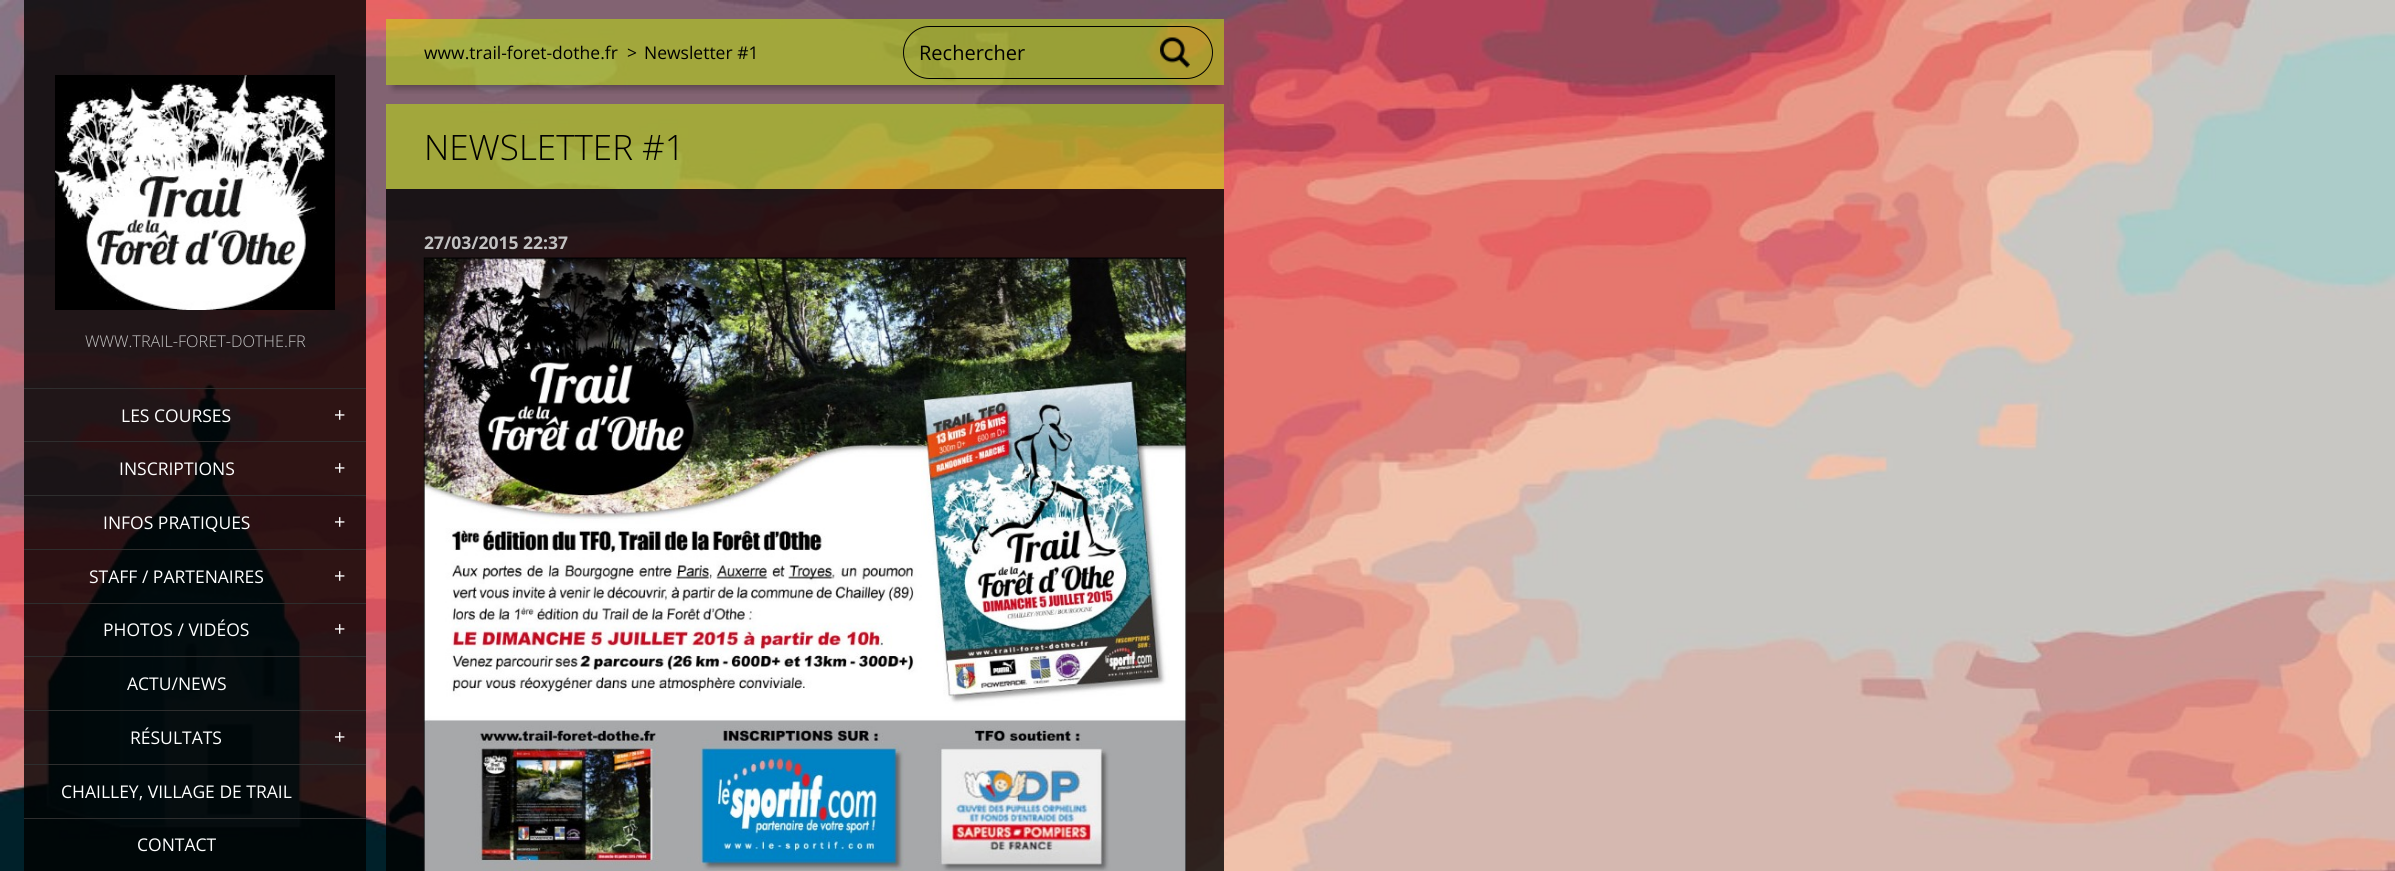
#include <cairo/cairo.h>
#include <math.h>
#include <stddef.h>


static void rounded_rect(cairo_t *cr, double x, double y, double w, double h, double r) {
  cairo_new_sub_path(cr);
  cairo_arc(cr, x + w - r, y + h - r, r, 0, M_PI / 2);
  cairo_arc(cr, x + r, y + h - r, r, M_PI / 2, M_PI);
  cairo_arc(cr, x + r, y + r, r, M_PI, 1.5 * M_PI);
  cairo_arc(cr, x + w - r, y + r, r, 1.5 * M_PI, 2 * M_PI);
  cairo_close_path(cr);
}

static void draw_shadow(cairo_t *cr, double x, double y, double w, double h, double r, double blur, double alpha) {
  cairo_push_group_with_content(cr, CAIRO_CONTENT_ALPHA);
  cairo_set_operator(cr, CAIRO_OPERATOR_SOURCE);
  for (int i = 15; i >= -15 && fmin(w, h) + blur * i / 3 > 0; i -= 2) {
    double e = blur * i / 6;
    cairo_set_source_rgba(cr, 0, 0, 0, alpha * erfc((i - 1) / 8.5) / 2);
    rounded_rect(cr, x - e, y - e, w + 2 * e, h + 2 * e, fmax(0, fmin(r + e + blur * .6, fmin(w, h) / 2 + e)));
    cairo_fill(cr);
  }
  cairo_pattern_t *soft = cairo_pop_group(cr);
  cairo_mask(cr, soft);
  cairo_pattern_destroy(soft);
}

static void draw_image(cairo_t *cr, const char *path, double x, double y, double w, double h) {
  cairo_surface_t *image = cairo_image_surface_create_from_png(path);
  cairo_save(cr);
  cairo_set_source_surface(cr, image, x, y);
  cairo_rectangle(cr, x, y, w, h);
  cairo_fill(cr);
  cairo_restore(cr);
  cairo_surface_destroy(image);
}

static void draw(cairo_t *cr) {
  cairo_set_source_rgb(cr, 1, 1, 1);
  cairo_paint(cr);
  draw_image(cr, "images/1.png", 0, 0, 2395, 871);
  cairo_save(cr);
  cairo_rectangle(cr, 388, 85, 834, 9);
  cairo_clip(cr);
  cairo_set_source_rgb(cr, 0, 0, 0);
  draw_shadow(cr, 394, 36, 822, 52, 0, 4, 0.35);
  cairo_restore(cr);
  cairo_set_source_rgba(cr, 195 / 255.0, 236 / 255.0, 6 / 255.0, 0.5);
  cairo_rectangle(cr, 386, 19, 838, 66);
  cairo_fill(cr);
  cairo_rectangle(cr, 386, 104, 838, 85);
  cairo_fill(cr);
  cairo_set_source_rgba(cr, 0, 0, 0, 0.8);
  cairo_rectangle(cr, 386, 189, 838, 682);
  cairo_fill(cr);
  draw_image(cr, "images/2.png", 423, 257, 764, 614);
  rounded_rect(cr, 903.5, 26.5, 309, 52, 26);
  cairo_set_source_rgb(cr, 0, 0, 0);
  cairo_set_line_width(cr, 1);
  cairo_stroke(cr);
  draw_image(cr, "images/3.png", 1160, 37, 30, 31);
  cairo_set_source_rgba(cr, 0, 0, 0, 0.8);
  cairo_rectangle(cr, 24, 0, 342, 325);
  cairo_fill(cr);
  draw_image(cr, "images/4.png", 55, 75, 280, 235);
  cairo_rectangle(cr, 24, 325, 342, 63);
  cairo_fill(cr);
  cairo_rectangle(cr, 24, 389, 342, 482);
  cairo_fill(cr);
  cairo_set_source_rgb(cr, 46 / 255.0, 46 / 255.0, 46 / 255.0);
  cairo_rectangle(cr, 24, 388, 342, 1);
  cairo_fill(cr);
  cairo_rectangle(cr, 24, 441, 342, 1);
  cairo_fill(cr);
  cairo_rectangle(cr, 24, 495, 342, 1);
  cairo_fill(cr);
  cairo_rectangle(cr, 24, 549, 342, 1);
  cairo_fill(cr);
  cairo_rectangle(cr, 24, 603, 342, 1);
  cairo_fill(cr);
  cairo_rectangle(cr, 24, 656, 342, 1);
  cairo_fill(cr);
  cairo_rectangle(cr, 24, 710, 342, 1);
  cairo_fill(cr);
  cairo_rectangle(cr, 24, 764, 342, 1);
  cairo_fill(cr);
  cairo_rectangle(cr, 24, 818, 342, 1);
  cairo_fill(cr);
  cairo_select_font_face(cr, "Open Sans", CAIRO_FONT_SLANT_NORMAL, CAIRO_FONT_WEIGHT_NORMAL);
  cairo_set_font_size(cr, 17.5);
  cairo_set_source_rgb(cr, 0, 0, 0);
  cairo_move_to(cr, 424, 59);
  cairo_show_text(cr, "www.trail-foret-dothe.fr");
  cairo_move_to(cr, 627, 59);
  cairo_show_text(cr, ">");
  cairo_move_to(cr, 644, 59);
  cairo_show_text(cr, "Newsletter #1");
  cairo_select_font_face(cr, "Open Sans Light", CAIRO_FONT_SLANT_NORMAL, CAIRO_FONT_WEIGHT_NORMAL);
  cairo_set_font_size(cr, 35);
  cairo_move_to(cr, 424, 160);
  cairo_show_text(cr, "NEWSLETTER #1");
  cairo_select_font_face(cr, "Open Sans", CAIRO_FONT_SLANT_NORMAL, CAIRO_FONT_WEIGHT_BOLD);
  cairo_set_font_size(cr, 17.5);
  cairo_set_source_rgb(cr, 194 / 255.0, 194 / 255.0, 194 / 255.0);
  cairo_move_to(cr, 424, 249);
  cairo_show_text(cr, "27/03/2015 22:37");
  cairo_select_font_face(cr, "Open Sans", CAIRO_FONT_SLANT_NORMAL, CAIRO_FONT_WEIGHT_NORMAL);
  cairo_set_font_size(cr, 20);
  cairo_set_source_rgb(cr, 0, 0, 0);
  cairo_move_to(cr, 919, 60);
  cairo_show_text(cr, "Rechercher");
  cairo_select_font_face(cr, "Open Sans Light", CAIRO_FONT_SLANT_NORMAL, CAIRO_FONT_WEIGHT_NORMAL);
  cairo_set_font_size(cr, 16.25);
  cairo_set_source_rgb(cr, 194 / 255.0, 194 / 255.0, 194 / 255.0);
  cairo_move_to(cr, 85, 347);
  cairo_show_text(cr, "WWW.TRAIL-FORET-DOTHE.FR");
  cairo_select_font_face(cr, "Open Sans", CAIRO_FONT_SLANT_NORMAL, CAIRO_FONT_WEIGHT_NORMAL);
  cairo_set_font_size(cr, 17.5);
  cairo_set_source_rgb(cr, 1, 1, 1);
  cairo_move_to(cr, 121, 422);
  cairo_show_text(cr, "LES COURSES");
  cairo_set_font_size(cr, 20);
  cairo_move_to(cr, 334, 422);
  cairo_show_text(cr, "+");
  cairo_set_font_size(cr, 17.5);
  cairo_move_to(cr, 119, 475);
  cairo_show_text(cr, "INSCRIPTIONS");
  cairo_set_font_size(cr, 20);
  cairo_move_to(cr, 334, 475);
  cairo_show_text(cr, "+");
  cairo_set_font_size(cr, 17.5);
  cairo_move_to(cr, 103, 529);
  cairo_show_text(cr, "INFOS PRATIQUES");
  cairo_set_font_size(cr, 20);
  cairo_move_to(cr, 334, 529);
  cairo_show_text(cr, "+");
  cairo_set_font_size(cr, 17.5);
  cairo_move_to(cr, 89, 583);
  cairo_show_text(cr, "STAFF / PARTENAIRES");
  cairo_set_font_size(cr, 20);
  cairo_move_to(cr, 334, 583);
  cairo_show_text(cr, "+");
  cairo_set_font_size(cr, 17.5);
  cairo_move_to(cr, 103, 636);
  cairo_show_text(cr, "PHOTOS / VIDÉOS");
  cairo_set_font_size(cr, 20);
  cairo_move_to(cr, 334, 636);
  cairo_show_text(cr, "+");
  cairo_set_font_size(cr, 17.5);
  cairo_move_to(cr, 127, 690);
  cairo_show_text(cr, "ACTU/NEWS");
  cairo_move_to(cr, 130, 744);
  cairo_show_text(cr, "RÉSULTATS");
  cairo_set_font_size(cr, 20);
  cairo_move_to(cr, 334, 744);
  cairo_show_text(cr, "+");
  cairo_set_font_size(cr, 17.5);
  cairo_move_to(cr, 61, 798);
  cairo_show_text(cr, "CHAILLEY, VILLAGE DE TRAIL");
  cairo_move_to(cr, 137, 851);
  cairo_show_text(cr, "CONTACT");
}

int main(void) {
  cairo_surface_t *surface = cairo_image_surface_create(CAIRO_FORMAT_RGB24, 2395, 871);
  cairo_t *cr = cairo_create(surface);
  cairo_font_options_t *options = cairo_font_options_create();
  cairo_font_options_set_hint_metrics(options, CAIRO_HINT_METRICS_OFF);
  cairo_font_options_set_hint_style(options, CAIRO_HINT_STYLE_NONE);
  cairo_set_font_options(cr, options);
  cairo_set_miter_limit(cr, 4);
  draw(cr);
  cairo_surface_write_to_png(surface, "out.png");
  cairo_font_options_destroy(options);
  cairo_destroy(cr);
  cairo_surface_destroy(surface);
  return 0;
}
